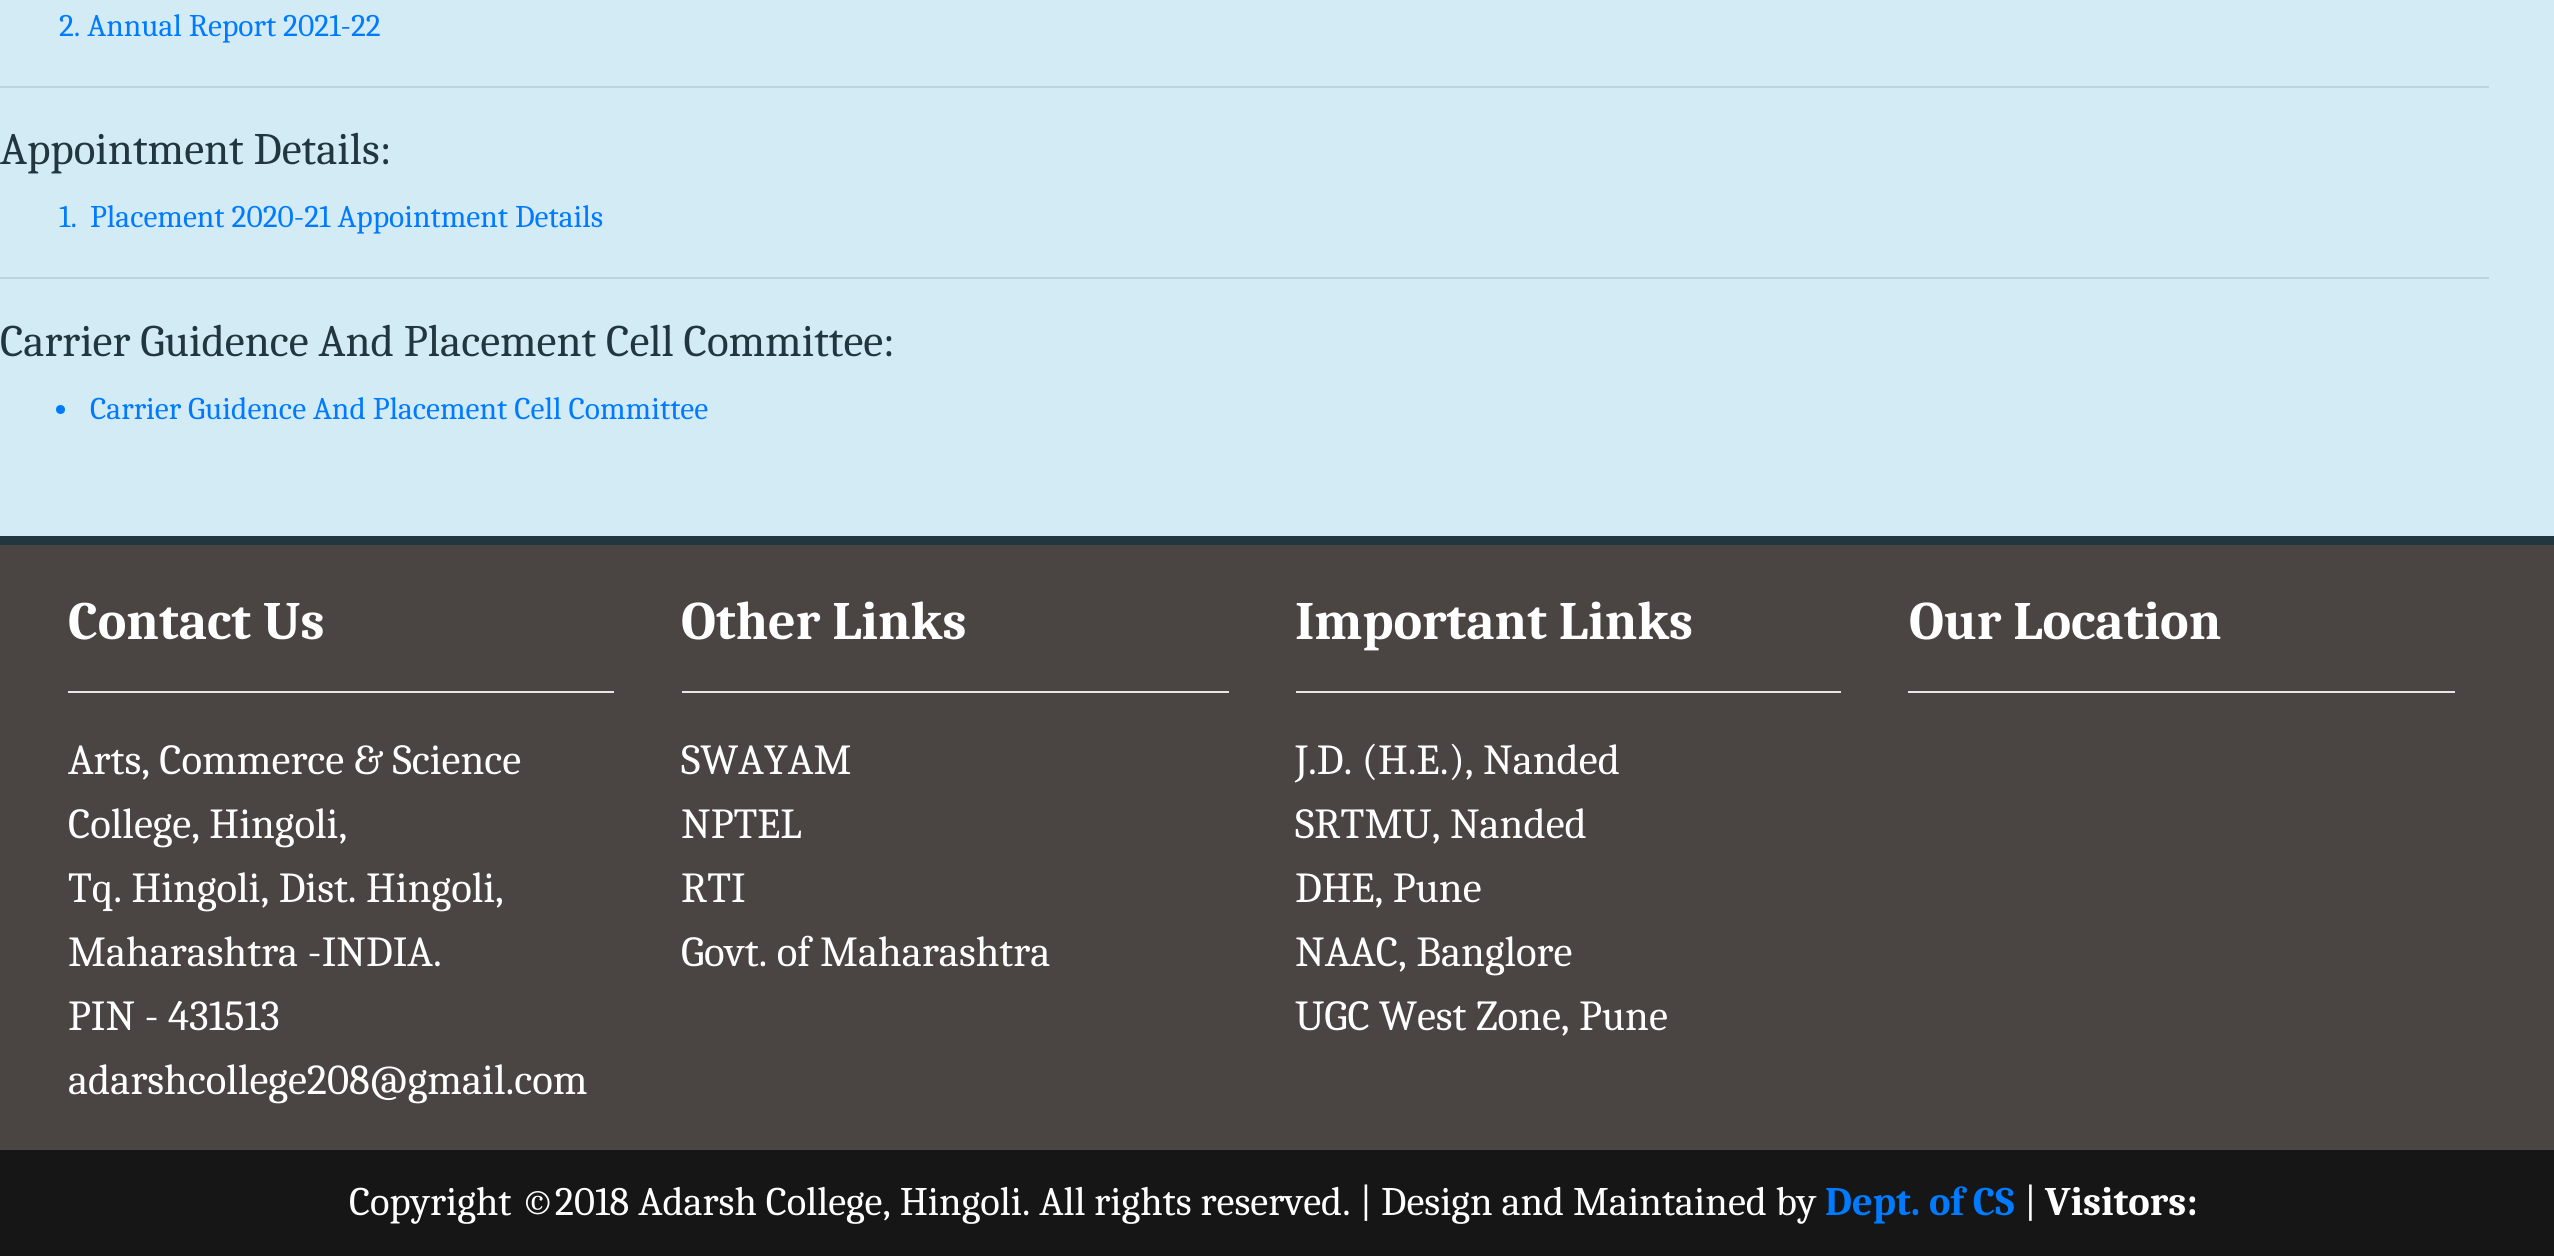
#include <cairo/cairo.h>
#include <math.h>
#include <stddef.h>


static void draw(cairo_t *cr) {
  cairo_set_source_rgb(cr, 211 / 255.0, 235 / 255.0, 245 / 255.0);
  cairo_paint(cr);
  cairo_set_source_rgb(cr, 190 / 255.0, 212 / 255.0, 221 / 255.0);
  cairo_rectangle(cr, 0, 86, 2489, 2);
  cairo_fill(cr);
  cairo_rectangle(cr, 0, 277, 2489, 2);
  cairo_fill(cr);
  cairo_set_source_rgb(cr, 0, 123 / 255.0, 1);
  cairo_arc(cr, 60.5, 409.5, 4.5, 0, 2 * M_PI);
  cairo_fill(cr);
  cairo_set_source_rgb(cr, 34 / 255.0, 54 / 255.0, 63 / 255.0);
  cairo_rectangle(cr, 0, 536, 2554, 9);
  cairo_fill(cr);
  cairo_set_source_rgb(cr, 74 / 255.0, 69 / 255.0, 66 / 255.0);
  cairo_rectangle(cr, 0, 545, 2554, 605);
  cairo_fill(cr);
  cairo_set_source_rgb(cr, 230 / 255.0, 230 / 255.0, 230 / 255.0);
  cairo_rectangle(cr, 68, 691, 546, 2);
  cairo_fill(cr);
  cairo_rectangle(cr, 682, 691, 547, 2);
  cairo_fill(cr);
  cairo_rectangle(cr, 1296, 691, 545, 2);
  cairo_fill(cr);
  cairo_rectangle(cr, 1908, 691, 547, 2);
  cairo_fill(cr);
  cairo_set_source_rgb(cr, 22 / 255.0, 22 / 255.0, 22 / 255.0);
  cairo_rectangle(cr, 0, 1150, 2554, 106);
  cairo_fill(cr);
  cairo_select_font_face(cr, "Caladea", CAIRO_FONT_SLANT_NORMAL, CAIRO_FONT_WEIGHT_NORMAL);
  cairo_set_font_size(cr, 31.5);
  cairo_set_source_rgb(cr, 0, 123 / 255.0, 1);
  cairo_move_to(cr, 59, 36);
  cairo_show_text(cr, "2. Annual Report 2021-22");
  cairo_set_font_size(cr, 45);
  cairo_set_source_rgb(cr, 34 / 255.0, 54 / 255.0, 63 / 255.0);
  cairo_move_to(cr, 0, 164);
  cairo_show_text(cr, "Appointment Details:");
  cairo_set_font_size(cr, 31.5);
  cairo_set_source_rgb(cr, 0, 123 / 255.0, 1);
  cairo_move_to(cr, 59, 227);
  cairo_show_text(cr, "1.");
  cairo_move_to(cr, 90, 227);
  cairo_show_text(cr, "Placement 2020-21 Appointment Details");
  cairo_set_font_size(cr, 45);
  cairo_set_source_rgb(cr, 34 / 255.0, 54 / 255.0, 63 / 255.0);
  cairo_move_to(cr, 0, 356);
  cairo_show_text(cr, "Carrier Guidence And Placement Cell Committee:");
  cairo_set_font_size(cr, 31.5);
  cairo_set_source_rgb(cr, 0, 123 / 255.0, 1);
  cairo_move_to(cr, 90, 419);
  cairo_show_text(cr, "Carrier Guidence And Placement Cell Committee");
  cairo_select_font_face(cr, "Caladea", CAIRO_FONT_SLANT_NORMAL, CAIRO_FONT_WEIGHT_BOLD);
  cairo_set_font_size(cr, 54);
  cairo_set_source_rgb(cr, 1, 1, 1);
  cairo_move_to(cr, 68, 639);
  cairo_show_text(cr, "Contact Us");
  cairo_select_font_face(cr, "Caladea", CAIRO_FONT_SLANT_NORMAL, CAIRO_FONT_WEIGHT_NORMAL);
  cairo_set_font_size(cr, 42.75);
  cairo_move_to(cr, 68, 774);
  cairo_show_text(cr, "Arts, Commerce & Science");
  cairo_move_to(cr, 68, 838);
  cairo_show_text(cr, "College, Hingoli,");
  cairo_move_to(cr, 68, 902);
  cairo_show_text(cr, "Tq. Hingoli, Dist. Hingoli,");
  cairo_move_to(cr, 68, 966);
  cairo_show_text(cr, "Maharashtra -INDIA.");
  cairo_move_to(cr, 68, 1030);
  cairo_show_text(cr, "PIN - 431513");
  cairo_move_to(cr, 68, 1094);
  cairo_show_text(cr, "adarshcollege208@gmail.com");
  cairo_select_font_face(cr, "Caladea", CAIRO_FONT_SLANT_NORMAL, CAIRO_FONT_WEIGHT_BOLD);
  cairo_set_font_size(cr, 54);
  cairo_move_to(cr, 681, 639);
  cairo_show_text(cr, "Other Links");
  cairo_select_font_face(cr, "Caladea", CAIRO_FONT_SLANT_NORMAL, CAIRO_FONT_WEIGHT_NORMAL);
  cairo_set_font_size(cr, 42.75);
  cairo_move_to(cr, 681, 774);
  cairo_show_text(cr, "SWAYAM");
  cairo_move_to(cr, 681, 838);
  cairo_show_text(cr, "NPTEL");
  cairo_move_to(cr, 681, 902);
  cairo_show_text(cr, "RTI");
  cairo_move_to(cr, 681, 966);
  cairo_show_text(cr, "Govt. of Maharashtra");
  cairo_select_font_face(cr, "Caladea", CAIRO_FONT_SLANT_NORMAL, CAIRO_FONT_WEIGHT_BOLD);
  cairo_set_font_size(cr, 54);
  cairo_move_to(cr, 1295, 639);
  cairo_show_text(cr, "Important Links");
  cairo_select_font_face(cr, "Caladea", CAIRO_FONT_SLANT_NORMAL, CAIRO_FONT_WEIGHT_NORMAL);
  cairo_set_font_size(cr, 42.75);
  cairo_move_to(cr, 1295, 774);
  cairo_show_text(cr, "J.D. (H.E.), Nanded");
  cairo_move_to(cr, 1295, 838);
  cairo_show_text(cr, "SRTMU, Nanded");
  cairo_move_to(cr, 1295, 902);
  cairo_show_text(cr, "DHE, Pune");
  cairo_move_to(cr, 1295, 966);
  cairo_show_text(cr, "NAAC, Banglore");
  cairo_move_to(cr, 1295, 1030);
  cairo_show_text(cr, "UGC West Zone, Pune");
  cairo_select_font_face(cr, "Caladea", CAIRO_FONT_SLANT_NORMAL, CAIRO_FONT_WEIGHT_BOLD);
  cairo_set_font_size(cr, 54);
  cairo_move_to(cr, 1909, 639);
  cairo_show_text(cr, "Our Location");
  cairo_select_font_face(cr, "Caladea", CAIRO_FONT_SLANT_NORMAL, CAIRO_FONT_WEIGHT_NORMAL);
  cairo_set_font_size(cr, 40.5);
  cairo_move_to(cr, 349, 1215);
  cairo_show_text(cr, "Copyright ©2018 Adarsh College, Hingoli. All rights reserved. | Design and Maintained by");
  cairo_select_font_face(cr, "Caladea", CAIRO_FONT_SLANT_NORMAL, CAIRO_FONT_WEIGHT_BOLD);
  cairo_set_source_rgb(cr, 0, 123 / 255.0, 1);
  cairo_move_to(cr, 1825, 1215);
  cairo_show_text(cr, "Dept. of CS");
  cairo_select_font_face(cr, "Caladea", CAIRO_FONT_SLANT_NORMAL, CAIRO_FONT_WEIGHT_NORMAL);
  cairo_set_source_rgb(cr, 1, 1, 1);
  cairo_move_to(cr, 2024, 1215);
  cairo_show_text(cr, "|");
  cairo_select_font_face(cr, "Caladea", CAIRO_FONT_SLANT_NORMAL, CAIRO_FONT_WEIGHT_BOLD);
  cairo_move_to(cr, 2045, 1215);
  cairo_show_text(cr, "Visitors:");
}

int main(void) {
  cairo_surface_t *surface = cairo_image_surface_create(CAIRO_FORMAT_RGB24, 2554, 1256);
  cairo_t *cr = cairo_create(surface);
  cairo_font_options_t *options = cairo_font_options_create();
  cairo_font_options_set_hint_metrics(options, CAIRO_HINT_METRICS_OFF);
  cairo_font_options_set_hint_style(options, CAIRO_HINT_STYLE_NONE);
  cairo_set_font_options(cr, options);
  cairo_set_miter_limit(cr, 4);
  draw(cr);
  cairo_surface_write_to_png(surface, "out.png");
  cairo_font_options_destroy(options);
  cairo_destroy(cr);
  cairo_surface_destroy(surface);
  return 0;
}
